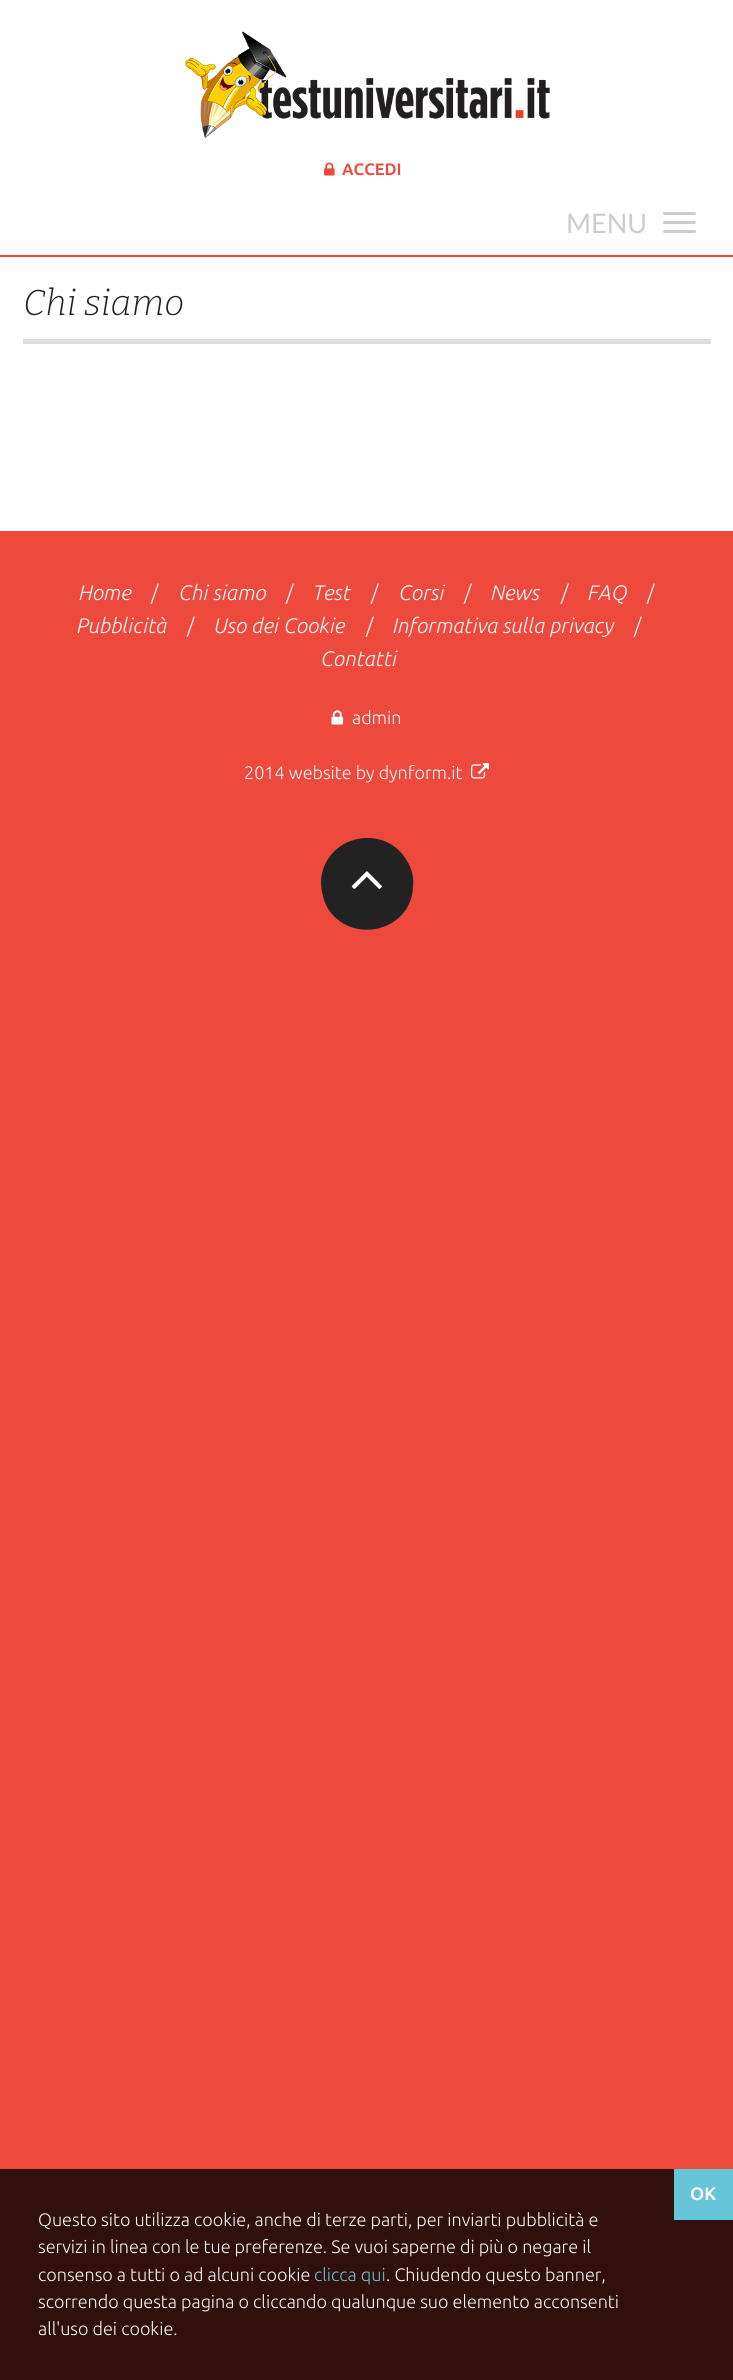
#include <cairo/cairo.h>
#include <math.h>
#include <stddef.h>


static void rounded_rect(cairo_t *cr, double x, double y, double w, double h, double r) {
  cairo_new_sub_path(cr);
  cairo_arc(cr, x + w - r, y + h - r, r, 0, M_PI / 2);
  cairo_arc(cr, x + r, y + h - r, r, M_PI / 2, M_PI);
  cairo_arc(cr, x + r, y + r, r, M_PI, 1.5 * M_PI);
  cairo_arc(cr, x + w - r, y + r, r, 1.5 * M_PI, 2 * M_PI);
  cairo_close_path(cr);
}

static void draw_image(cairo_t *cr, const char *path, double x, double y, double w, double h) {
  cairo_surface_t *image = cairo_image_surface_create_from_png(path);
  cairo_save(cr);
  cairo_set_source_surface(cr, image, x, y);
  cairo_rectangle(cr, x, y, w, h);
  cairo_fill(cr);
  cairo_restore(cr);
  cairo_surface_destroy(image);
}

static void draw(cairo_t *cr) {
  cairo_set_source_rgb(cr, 238 / 255.0, 73 / 255.0, 61 / 255.0);
  cairo_paint(cr);
  cairo_set_source_rgb(cr, 1, 1, 1);
  cairo_rectangle(cr, 0, 0, 733, 255);
  cairo_fill(cr);
  draw_image(cr, "images/1.png", 185, 31, 365, 108);
  draw_image(cr, "images/2.png", 324, 162, 11, 14);
  cairo_set_source_rgb(cr, 204 / 255.0, 204 / 255.0, 204 / 255.0);
  rounded_rect(cr, 663, 212, 33, 3, 1.5);
  cairo_fill(cr);
  rounded_rect(cr, 663, 221, 33, 3, 1.5);
  cairo_fill(cr);
  rounded_rect(cr, 663, 230, 33, 3, 1.5);
  cairo_fill(cr);
  cairo_set_source_rgb(cr, 1, 1, 1);
  cairo_rectangle(cr, 0, 257, 733, 274);
  cairo_fill(cr);
  cairo_set_source_rgb(cr, 221 / 255.0, 221 / 255.0, 221 / 255.0);
  cairo_rectangle(cr, 23, 339, 688, 5);
  cairo_fill(cr);
  draw_image(cr, "images/3.png", 331, 710, 13, 15);
  draw_image(cr, "images/4.png", 471, 763, 18, 16);
  cairo_set_source_rgb(cr, 34 / 255.0, 34 / 255.0, 34 / 255.0);
  cairo_new_path(cr);
  cairo_move_to(cr, 407, 861);
  cairo_curve_to(cr, 412, 869, 414, 878, 413, 887);
  cairo_curve_to(cr, 411, 932, 350, 946, 327, 907);
  cairo_curve_to(cr, 323, 899, 321, 890, 321, 881);
  cairo_curve_to(cr, 324, 835, 385, 822, 407, 861);
  cairo_close_path(cr);
  cairo_fill(cr);
  draw_image(cr, "images/5.png", 351, 871, 31, 18);
  cairo_set_source_rgb(cr, 48 / 255.0, 15 / 255.0, 12 / 255.0);
  cairo_rectangle(cr, 0, 2169, 733, 211);
  cairo_fill(cr);
  cairo_set_source_rgb(cr, 103 / 255.0, 197 / 255.0, 217 / 255.0);
  cairo_rectangle(cr, 674, 2169, 59, 51);
  cairo_fill(cr);
  cairo_select_font_face(cr, "Ubuntu", CAIRO_FONT_SLANT_NORMAL, CAIRO_FONT_WEIGHT_BOLD);
  cairo_set_font_size(cr, 16.5);
  cairo_set_source_rgb(cr, 238 / 255.0, 73 / 255.0, 61 / 255.0);
  cairo_move_to(cr, 342, 175);
  cairo_show_text(cr, "ACCEDI");
  cairo_select_font_face(cr, "Lato", CAIRO_FONT_SLANT_NORMAL, CAIRO_FONT_WEIGHT_NORMAL);
  cairo_set_font_size(cr, 27);
  cairo_set_source_rgb(cr, 204 / 255.0, 204 / 255.0, 204 / 255.0);
  cairo_move_to(cr, 566, 233);
  cairo_show_text(cr, "MENU");
  cairo_select_font_face(cr, "Bitter Light", CAIRO_FONT_SLANT_ITALIC, CAIRO_FONT_WEIGHT_NORMAL);
  cairo_set_font_size(cr, 36);
  cairo_set_source_rgb(cr, 34 / 255.0, 34 / 255.0, 34 / 255.0);
  cairo_move_to(cr, 23, 315);
  cairo_show_text(cr, "Chi siamo");
  cairo_select_font_face(cr, "Ubuntu Light", CAIRO_FONT_SLANT_ITALIC, CAIRO_FONT_WEIGHT_NORMAL);
  cairo_set_font_size(cr, 21);
  cairo_set_source_rgb(cr, 1, 1, 1);
  cairo_move_to(cr, 79, 600);
  cairo_show_text(cr, "Home");
  cairo_select_font_face(cr, "Ubuntu Light", CAIRO_FONT_SLANT_NORMAL, CAIRO_FONT_WEIGHT_NORMAL);
  cairo_move_to(cr, 151, 600);
  cairo_show_text(cr, "/");
  cairo_select_font_face(cr, "Ubuntu Light", CAIRO_FONT_SLANT_ITALIC, CAIRO_FONT_WEIGHT_NORMAL);
  cairo_move_to(cr, 179, 600);
  cairo_show_text(cr, "Chi siamo");
  cairo_select_font_face(cr, "Ubuntu Light", CAIRO_FONT_SLANT_NORMAL, CAIRO_FONT_WEIGHT_NORMAL);
  cairo_move_to(cr, 286, 600);
  cairo_show_text(cr, "/");
  cairo_select_font_face(cr, "Ubuntu Light", CAIRO_FONT_SLANT_ITALIC, CAIRO_FONT_WEIGHT_NORMAL);
  cairo_move_to(cr, 313, 600);
  cairo_show_text(cr, "Test");
  cairo_select_font_face(cr, "Ubuntu Light", CAIRO_FONT_SLANT_NORMAL, CAIRO_FONT_WEIGHT_NORMAL);
  cairo_move_to(cr, 371, 600);
  cairo_show_text(cr, "/");
  cairo_select_font_face(cr, "Ubuntu Light", CAIRO_FONT_SLANT_ITALIC, CAIRO_FONT_WEIGHT_NORMAL);
  cairo_move_to(cr, 399, 600);
  cairo_show_text(cr, "Corsi");
  cairo_select_font_face(cr, "Ubuntu Light", CAIRO_FONT_SLANT_NORMAL, CAIRO_FONT_WEIGHT_NORMAL);
  cairo_move_to(cr, 464, 600);
  cairo_show_text(cr, "/");
  cairo_select_font_face(cr, "Ubuntu Light", CAIRO_FONT_SLANT_ITALIC, CAIRO_FONT_WEIGHT_NORMAL);
  cairo_move_to(cr, 491, 600);
  cairo_show_text(cr, "News");
  cairo_select_font_face(cr, "Ubuntu Light", CAIRO_FONT_SLANT_NORMAL, CAIRO_FONT_WEIGHT_NORMAL);
  cairo_move_to(cr, 561, 600);
  cairo_show_text(cr, "/");
  cairo_select_font_face(cr, "Ubuntu Light", CAIRO_FONT_SLANT_ITALIC, CAIRO_FONT_WEIGHT_NORMAL);
  cairo_move_to(cr, 588, 600);
  cairo_show_text(cr, "FAQ");
  cairo_select_font_face(cr, "Ubuntu Light", CAIRO_FONT_SLANT_NORMAL, CAIRO_FONT_WEIGHT_NORMAL);
  cairo_move_to(cr, 647, 600);
  cairo_show_text(cr, "/");
  cairo_select_font_face(cr, "Ubuntu Light", CAIRO_FONT_SLANT_ITALIC, CAIRO_FONT_WEIGHT_NORMAL);
  cairo_move_to(cr, 77, 633);
  cairo_show_text(cr, "Pubblicità");
  cairo_select_font_face(cr, "Ubuntu Light", CAIRO_FONT_SLANT_NORMAL, CAIRO_FONT_WEIGHT_NORMAL);
  cairo_move_to(cr, 187, 633);
  cairo_show_text(cr, "/");
  cairo_select_font_face(cr, "Ubuntu Light", CAIRO_FONT_SLANT_ITALIC, CAIRO_FONT_WEIGHT_NORMAL);
  cairo_move_to(cr, 214, 633);
  cairo_show_text(cr, "Uso dei Cookie");
  cairo_select_font_face(cr, "Ubuntu Light", CAIRO_FONT_SLANT_NORMAL, CAIRO_FONT_WEIGHT_NORMAL);
  cairo_move_to(cr, 366, 633);
  cairo_show_text(cr, "/");
  cairo_select_font_face(cr, "Ubuntu Light", CAIRO_FONT_SLANT_ITALIC, CAIRO_FONT_WEIGHT_NORMAL);
  cairo_move_to(cr, 393, 633);
  cairo_show_text(cr, "Informativa sulla privacy");
  cairo_select_font_face(cr, "Ubuntu Light", CAIRO_FONT_SLANT_NORMAL, CAIRO_FONT_WEIGHT_NORMAL);
  cairo_move_to(cr, 634, 633);
  cairo_show_text(cr, "/");
  cairo_select_font_face(cr, "Ubuntu Light", CAIRO_FONT_SLANT_ITALIC, CAIRO_FONT_WEIGHT_NORMAL);
  cairo_move_to(cr, 321, 666);
  cairo_show_text(cr, "Contatti");
  cairo_select_font_face(cr, "Ubuntu Light", CAIRO_FONT_SLANT_NORMAL, CAIRO_FONT_WEIGHT_NORMAL);
  cairo_set_font_size(cr, 18);
  cairo_move_to(cr, 352, 724);
  cairo_show_text(cr, "admin");
  cairo_move_to(cr, 244, 779);
  cairo_show_text(cr, "2014 website by dynform.it");
  cairo_select_font_face(cr, "Ubuntu", CAIRO_FONT_SLANT_NORMAL, CAIRO_FONT_WEIGHT_BOLD);
  cairo_move_to(cr, 690, 2200);
  cairo_show_text(cr, "OK");
  cairo_select_font_face(cr, "Ubuntu Light", CAIRO_FONT_SLANT_NORMAL, CAIRO_FONT_WEIGHT_NORMAL);
  cairo_move_to(cr, 38, 2226);
  cairo_show_text(cr, "Questo sito utilizza cookie, anche di terze parti, per inviarti pubblicità e");
  cairo_move_to(cr, 38, 2253);
  cairo_show_text(cr, "servizi in linea con le tue preferenze. Se vuoi saperne di più o negare il");
  cairo_move_to(cr, 38, 2281);
  cairo_show_text(cr, "consenso a tutti o ad alcuni cookie");
  cairo_set_source_rgb(cr, 103 / 255.0, 197 / 255.0, 217 / 255.0);
  cairo_move_to(cr, 314, 2281);
  cairo_show_text(cr, "clicca qui");
  cairo_set_source_rgb(cr, 1, 1, 1);
  cairo_move_to(cr, 386, 2281);
  cairo_show_text(cr, ". Chiudendo questo banner,");
  cairo_move_to(cr, 38, 2308);
  cairo_show_text(cr, "scorrendo questa pagina o cliccando qualunque suo elemento acconsenti");
  cairo_move_to(cr, 38, 2335);
  cairo_show_text(cr, "all'uso dei cookie.");
}

int main(void) {
  cairo_surface_t *surface = cairo_image_surface_create(CAIRO_FORMAT_RGB24, 733, 2380);
  cairo_t *cr = cairo_create(surface);
  cairo_font_options_t *options = cairo_font_options_create();
  cairo_font_options_set_hint_metrics(options, CAIRO_HINT_METRICS_OFF);
  cairo_font_options_set_hint_style(options, CAIRO_HINT_STYLE_NONE);
  cairo_set_font_options(cr, options);
  cairo_set_miter_limit(cr, 4);
  draw(cr);
  cairo_surface_write_to_png(surface, "out.png");
  cairo_font_options_destroy(options);
  cairo_destroy(cr);
  cairo_surface_destroy(surface);
  return 0;
}
